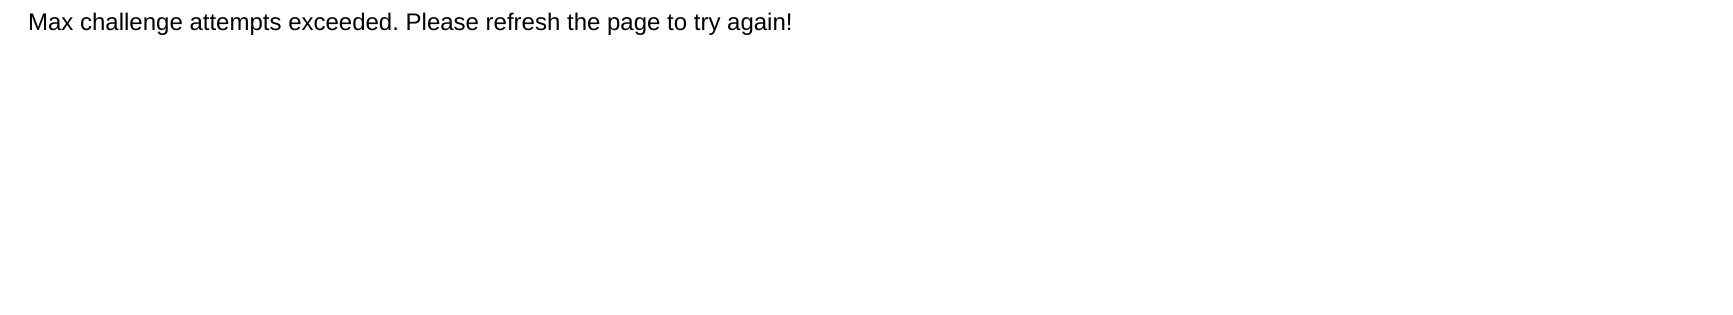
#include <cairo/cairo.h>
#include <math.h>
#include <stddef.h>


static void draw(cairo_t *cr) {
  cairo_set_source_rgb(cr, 1, 1, 1);
  cairo_paint(cr);
  cairo_select_font_face(cr, "Liberation Sans", CAIRO_FONT_SLANT_NORMAL, CAIRO_FONT_WEIGHT_NORMAL);
  cairo_set_font_size(cr, 24);
  cairo_set_source_rgb(cr, 0, 0, 0);
  cairo_move_to(cr, 28, 30);
  cairo_show_text(cr, "Max challenge attempts exceeded. Please refresh the page to try again!");
}

int main(void) {
  cairo_surface_t *surface = cairo_image_surface_create(CAIRO_FORMAT_RGB24, 1733, 315);
  cairo_t *cr = cairo_create(surface);
  cairo_font_options_t *options = cairo_font_options_create();
  cairo_font_options_set_hint_metrics(options, CAIRO_HINT_METRICS_OFF);
  cairo_font_options_set_hint_style(options, CAIRO_HINT_STYLE_NONE);
  cairo_set_font_options(cr, options);
  cairo_set_miter_limit(cr, 4);
  draw(cr);
  cairo_surface_write_to_png(surface, "out.png");
  cairo_font_options_destroy(options);
  cairo_destroy(cr);
  cairo_surface_destroy(surface);
  return 0;
}
